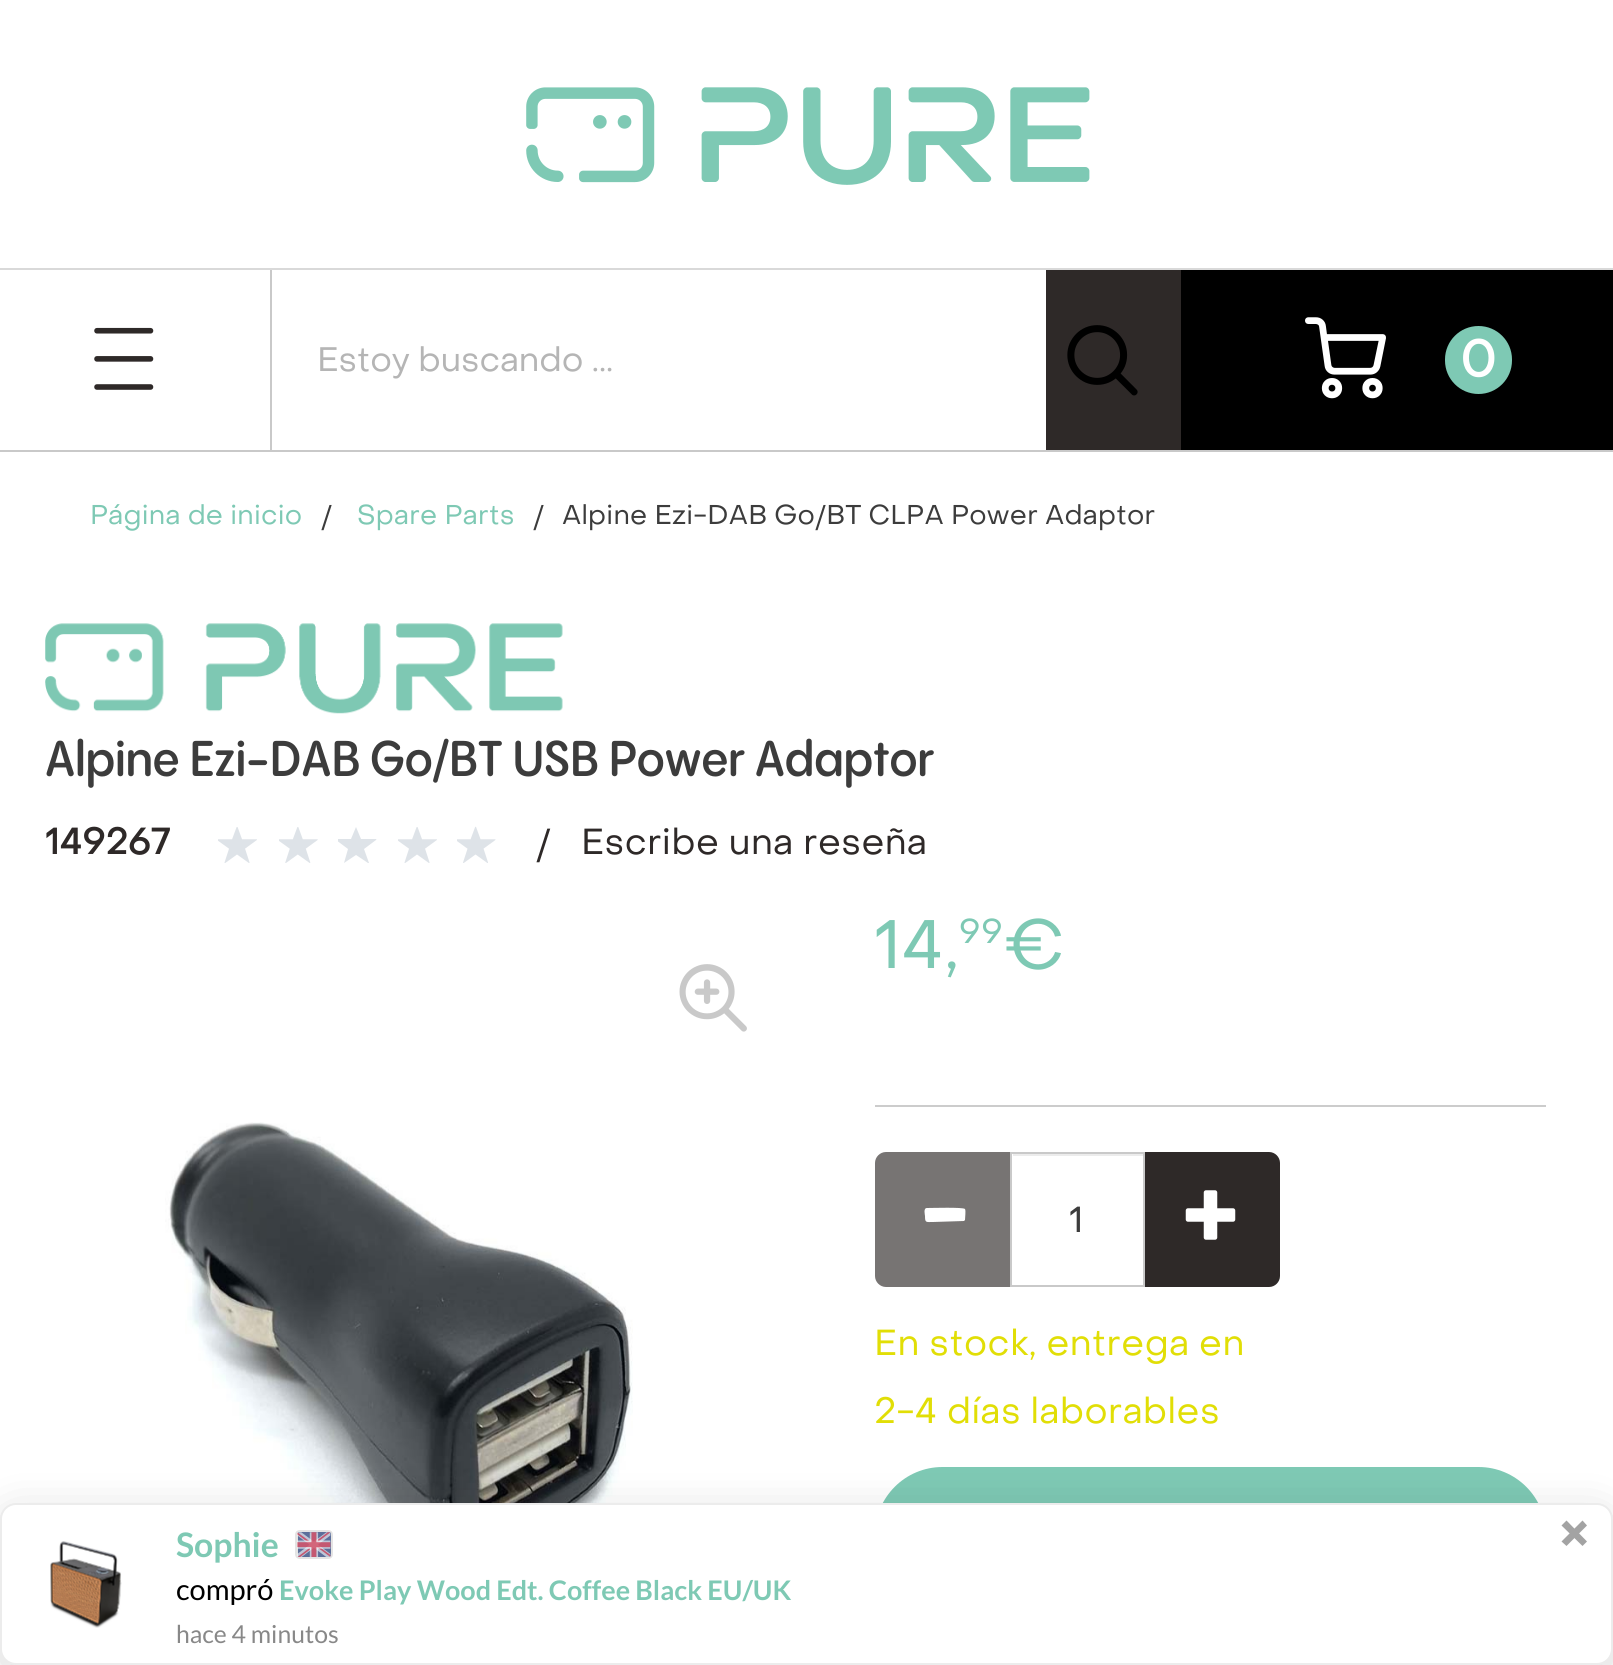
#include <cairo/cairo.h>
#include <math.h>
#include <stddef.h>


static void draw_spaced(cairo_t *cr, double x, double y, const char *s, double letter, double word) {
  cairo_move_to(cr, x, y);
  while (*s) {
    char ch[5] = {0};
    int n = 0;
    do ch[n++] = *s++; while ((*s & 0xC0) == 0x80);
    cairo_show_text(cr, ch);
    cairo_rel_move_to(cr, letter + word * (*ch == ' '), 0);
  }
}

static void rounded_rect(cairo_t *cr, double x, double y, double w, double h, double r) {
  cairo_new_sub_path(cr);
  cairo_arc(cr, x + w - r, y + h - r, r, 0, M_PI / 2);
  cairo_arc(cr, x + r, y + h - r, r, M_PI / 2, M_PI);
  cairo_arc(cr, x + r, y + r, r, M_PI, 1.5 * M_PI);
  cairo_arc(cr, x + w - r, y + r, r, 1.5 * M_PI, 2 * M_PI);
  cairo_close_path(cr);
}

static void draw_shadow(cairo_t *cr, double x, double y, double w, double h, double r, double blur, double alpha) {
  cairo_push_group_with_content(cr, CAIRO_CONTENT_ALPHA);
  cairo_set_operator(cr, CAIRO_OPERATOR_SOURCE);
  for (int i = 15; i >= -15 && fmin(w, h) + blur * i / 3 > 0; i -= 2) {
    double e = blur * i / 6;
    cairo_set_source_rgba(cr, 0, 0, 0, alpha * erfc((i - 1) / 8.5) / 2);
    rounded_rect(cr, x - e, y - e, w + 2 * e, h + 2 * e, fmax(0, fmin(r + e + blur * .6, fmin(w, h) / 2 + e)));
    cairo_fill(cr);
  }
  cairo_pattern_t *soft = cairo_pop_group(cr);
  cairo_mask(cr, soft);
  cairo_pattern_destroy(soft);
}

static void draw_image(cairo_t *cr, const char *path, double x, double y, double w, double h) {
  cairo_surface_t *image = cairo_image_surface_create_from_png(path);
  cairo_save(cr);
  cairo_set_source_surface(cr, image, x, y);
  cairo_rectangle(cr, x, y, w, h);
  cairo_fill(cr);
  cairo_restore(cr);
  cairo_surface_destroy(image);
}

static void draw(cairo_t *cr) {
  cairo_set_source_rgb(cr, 1, 1, 1);
  cairo_paint(cr);
  cairo_set_source_rgb(cr, 217 / 255.0, 217 / 255.0, 217 / 255.0);
  cairo_rectangle(cr, 0, 268, 1613, 2);
  cairo_fill(cr);
  draw_image(cr, "images/1.png", 526, 87, 564, 98);
  cairo_set_source_rgb(cr, 201 / 255.0, 201 / 255.0, 201 / 255.0);
  cairo_rectangle(cr, 0, 450, 1613, 2);
  cairo_fill(cr);
  draw_image(cr, "images/2.png", 94, 327, 60, 63);
  cairo_rectangle(cr, 270, 270, 2, 180);
  cairo_fill(cr);
  cairo_set_source_rgb(cr, 46 / 255.0, 41 / 255.0, 40 / 255.0);
  cairo_rectangle(cr, 1046, 270, 135, 180);
  cairo_fill(cr);
  draw_image(cr, "images/3.png", 1067, 325, 71, 71);
  cairo_set_source_rgb(cr, 0, 0, 0);
  cairo_rectangle(cr, 1181, 270, 432, 180);
  cairo_fill(cr);
  draw_image(cr, "images/4.png", 1305, 317, 81, 82);
  cairo_set_source_rgb(cr, 126 / 255.0, 201 / 255.0, 180 / 255.0);
  rounded_rect(cr, 1445, 326, 67, 68, 33.5);
  cairo_fill(cr);
  draw_image(cr, "images/5.png", 45, 623, 518, 91);
  draw_image(cr, "images/6.png", 218, 827, 39, 36);
  draw_image(cr, "images/7.png", 279, 827, 39, 36);
  cairo_save(cr);
  cairo_rectangle(cr, 338, 826, 42, 40);
  cairo_clip(cr);
  cairo_set_source_rgb(cr, 222 / 255.0, 227 / 255.0, 232 / 255.0);
  cairo_new_path(cr);
  cairo_move_to(cr, 351, 839);
  cairo_line_to(cr, 356, 827);
  cairo_line_to(cr, 361, 839);
  cairo_line_to(cr, 376, 839);
  cairo_curve_to(cr, 377, 839, 376, 840, 376, 840);
  cairo_line_to(cr, 364, 849);
  cairo_line_to(cr, 369, 863);
  cairo_line_to(cr, 368, 863);
  cairo_line_to(cr, 356, 855);
  cairo_line_to(cr, 344, 863);
  cairo_line_to(cr, 348, 849);
  cairo_line_to(cr, 336, 840);
  cairo_line_to(cr, 336, 839);
  cairo_close_path(cr);
  cairo_fill(cr);
  cairo_restore(cr);
  draw_image(cr, "images/6.png", 398, 827, 39, 36);
  draw_image(cr, "images/8.png", 457, 826, 39, 37);
  draw_image(cr, "images/9.png", 165, 1122, 468, 381);
  draw_image(cr, "images/10.png", 679, 964, 68, 68);
  cairo_set_source_rgb(cr, 204 / 255.0, 204 / 255.0, 204 / 255.0);
  cairo_rectangle(cr, 875, 1105, 671, 2);
  cairo_fill(cr);
  cairo_set_source_rgb(cr, 119 / 255.0, 116 / 255.0, 115 / 255.0);
  cairo_new_path(cr);
  cairo_move_to(cr, 886, 1152);
  cairo_line_to(cr, 1010, 1152);
  cairo_line_to(cr, 1010, 1287);
  cairo_line_to(cr, 886, 1287);
  cairo_curve_to(cr, 880, 1287, 875, 1282, 875, 1276);
  cairo_line_to(cr, 875, 1163);
  cairo_curve_to(cr, 875, 1157, 880, 1152, 886, 1152);
  cairo_close_path(cr);
  cairo_fill(cr);
  cairo_set_source_rgb(cr, 1, 1, 1);
  cairo_new_path(cr);
  cairo_move_to(cr, 927, 1208);
  cairo_curve_to(cr, 932, 1208, 963, 1207, 965, 1209);
  cairo_curve_to(cr, 966, 1211, 965, 1217, 965, 1220);
  cairo_line_to(cr, 964, 1221);
  cairo_line_to(cr, 933, 1222);
  cairo_curve_to(cr, 926, 1222, 925, 1223, 925, 1216);
  cairo_curve_to(cr, 925, 1215, 923, 1208, 927, 1208);
  cairo_close_path(cr);
  cairo_fill(cr);
  cairo_set_source_rgb(cr, 236 / 255.0, 236 / 255.0, 236 / 255.0);
  cairo_rectangle(cr, 1013, 1154, 130, 2);
  cairo_fill(cr);
  cairo_rectangle(cr, 1011, 1153, 133, 133);
  cairo_set_source_rgb(cr, 201 / 255.0, 201 / 255.0, 201 / 255.0);
  cairo_stroke(cr);
  cairo_set_source_rgb(cr, 46 / 255.0, 41 / 255.0, 40 / 255.0);
  cairo_new_path(cr);
  cairo_move_to(cr, 1145, 1152);
  cairo_line_to(cr, 1269, 1152);
  cairo_curve_to(cr, 1275, 1152, 1280, 1157, 1280, 1163);
  cairo_line_to(cr, 1280, 1276);
  cairo_curve_to(cr, 1280, 1282, 1275, 1287, 1269, 1287);
  cairo_line_to(cr, 1145, 1287);
  cairo_close_path(cr);
  cairo_fill(cr);
  draw_image(cr, "images/11.png", 1185, 1190, 51, 50);
  cairo_set_source_rgb(cr, 126 / 255.0, 201 / 255.0, 180 / 255.0);
  rounded_rect(cr, 875, 1467, 671, 135, 67.5);
  cairo_fill(cr);
  cairo_set_source_rgb(cr, 0, 0, 0);
  draw_shadow(cr, 0, 1514, 1613, 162, 16, 22.5, 0.15);
  cairo_set_source_rgb(cr, 1, 1, 1);
  rounded_rect(cr, 1, 1504, 1611, 160, 15);
  cairo_fill_preserve(cr);
  cairo_set_source_rgb(cr, 236 / 255.0, 236 / 255.0, 236 / 255.0);
  cairo_stroke(cr);
  draw_image(cr, "images/12.png", 50, 1541, 72, 87);
  cairo_set_source_rgb(cr, 228 / 255.0, 228 / 255.0, 228 / 255.0);
  cairo_new_path(cr);
  cairo_move_to(cr, 300, 1530);
  cairo_curve_to(cr, 297, 1530, 295, 1532, 295, 1535);
  cairo_line_to(cr, 295, 1554);
  cairo_curve_to(cr, 295, 1557, 297, 1559, 300, 1559);
  cairo_line_to(cr, 328, 1559);
  cairo_curve_to(cr, 331, 1559, 333, 1557, 333, 1554);
  cairo_line_to(cr, 333, 1535);
  cairo_curve_to(cr, 333, 1532, 331, 1530, 328, 1530);
  cairo_close_path(cr);
  cairo_fill(cr);
  draw_image(cr, "images/13.png", 297, 1532, 34, 25);
  cairo_set_source_rgb(cr, 163 / 255.0, 163 / 255.0, 163 / 255.0);
  cairo_new_path(cr);
  cairo_move_to(cr, 1566.5, 1520.5);
  cairo_line_to(cr, 1587, 1541.5);
  cairo_line_to(cr, 1582.5, 1546);
  cairo_line_to(cr, 1561.5, 1525.5);
  cairo_close_path(cr);
  cairo_fill(cr);
  cairo_new_path(cr);
  cairo_move_to(cr, 1582.5, 1520.5);
  cairo_line_to(cr, 1587, 1525.5);
  cairo_line_to(cr, 1566.5, 1546);
  cairo_line_to(cr, 1561.5, 1541.5);
  cairo_close_path(cr);
  cairo_fill(cr);
  cairo_select_font_face(cr, "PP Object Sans", CAIRO_FONT_SLANT_NORMAL, CAIRO_FONT_WEIGHT_NORMAL);
  cairo_set_font_size(cr, 33.75);
  cairo_set_source_rgb(cr, 181 / 255.0, 181 / 255.0, 181 / 255.0);
  cairo_move_to(cr, 317, 371);
  cairo_show_text(cr, "Estoy buscando ...");
  cairo_select_font_face(cr, "PP Object Sans", CAIRO_FONT_SLANT_NORMAL, CAIRO_FONT_WEIGHT_BOLD);
  cairo_set_font_size(cr, 49.5);
  cairo_set_source_rgb(cr, 1, 1, 1);
  draw_spaced(cr, 1460, 376, "0", 0.5, 0);
  cairo_select_font_face(cr, "PP Object Sans", CAIRO_FONT_SLANT_NORMAL, CAIRO_FONT_WEIGHT_NORMAL);
  cairo_set_font_size(cr, 27);
  cairo_set_source_rgb(cr, 126 / 255.0, 201 / 255.0, 180 / 255.0);
  draw_spaced(cr, 90, 524, "Página de inicio", 0.25, 0);
  cairo_set_source_rgb(cr, 60 / 255.0, 60 / 255.0, 60 / 255.0);
  draw_spaced(cr, 321, 524, "/", 0.25, 0);
  cairo_set_source_rgb(cr, 126 / 255.0, 201 / 255.0, 180 / 255.0);
  draw_spaced(cr, 357, 524, "Spare Parts", 0.25, 0);
  cairo_set_source_rgb(cr, 60 / 255.0, 60 / 255.0, 60 / 255.0);
  draw_spaced(cr, 533, 524, "/", 0.25, 0);
  draw_spaced(cr, 562, 524, "Alpine Ezi-DAB Go/BT CLPA Power Adaptor", 0.25, 0);
  cairo_select_font_face(cr, "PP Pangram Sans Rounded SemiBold", CAIRO_FONT_SLANT_NORMAL, CAIRO_FONT_WEIGHT_NORMAL);
  cairo_set_font_size(cr, 49.5);
  draw_spaced(cr, 45, 776, "Alpine Ezi-DAB Go/BT USB Power Adaptor", -0.25, 0);
  cairo_select_font_face(cr, "PP Object Sans", CAIRO_FONT_SLANT_NORMAL, CAIRO_FONT_WEIGHT_BOLD);
  cairo_set_font_size(cr, 36);
  cairo_set_source_rgb(cr, 46 / 255.0, 41 / 255.0, 40 / 255.0);
  draw_spaced(cr, 45, 854, "149267", 0.5, 0);
  cairo_select_font_face(cr, "PP Object Sans", CAIRO_FONT_SLANT_NORMAL, CAIRO_FONT_WEIGHT_NORMAL);
  draw_spaced(cr, 536, 854, "/", 0.5, 0);
  draw_spaced(cr, 581, 854, "Escribe una reseña", 0.5, 0);
  cairo_set_font_size(cr, 68);
  cairo_set_source_rgb(cr, 126 / 255.0, 201 / 255.0, 180 / 255.0);
  draw_spaced(cr, 874, 968, "14,", 1, 0);
  cairo_set_font_size(cr, 33.75);
  draw_spaced(cr, 959, 943, "99", 1, 0);
  cairo_set_font_size(cr, 68);
  draw_spaced(cr, 1003, 968, "€", 1, 0);
  cairo_set_font_size(cr, 36);
  cairo_set_source_rgb(cr, 60 / 255.0, 60 / 255.0, 60 / 255.0);
  cairo_move_to(cr, 1069, 1232);
  cairo_show_text(cr, "1");
  cairo_set_source_rgb(cr, 225 / 255.0, 222 / 255.0, 6 / 255.0);
  draw_spaced(cr, 874, 1355, "En stock, entrega en", 0.5, 0);
  draw_spaced(cr, 874, 1423, "2-4 días laborables", 0.5, 0);
  cairo_select_font_face(cr, "Lato", CAIRO_FONT_SLANT_NORMAL, CAIRO_FONT_WEIGHT_BOLD);
  cairo_set_font_size(cr, 33.75);
  cairo_set_source_rgb(cr, 126 / 255.0, 201 / 255.0, 180 / 255.0);
  cairo_move_to(cr, 176, 1557);
  cairo_show_text(cr, "Sophie");
  cairo_select_font_face(cr, "Lato", CAIRO_FONT_SLANT_NORMAL, CAIRO_FONT_WEIGHT_NORMAL);
  cairo_set_font_size(cr, 29);
  cairo_set_source_rgb(cr, 0, 0, 0);
  cairo_move_to(cr, 176, 1600);
  cairo_show_text(cr, "compró");
  cairo_select_font_face(cr, "Lato", CAIRO_FONT_SLANT_NORMAL, CAIRO_FONT_WEIGHT_BOLD);
  cairo_set_font_size(cr, 27);
  cairo_set_source_rgb(cr, 126 / 255.0, 201 / 255.0, 180 / 255.0);
  cairo_move_to(cr, 279, 1600);
  cairo_show_text(cr, "Evoke Play Wood Edt. Coffee Black EU/UK");
  cairo_select_font_face(cr, "Lato", CAIRO_FONT_SLANT_NORMAL, CAIRO_FONT_WEIGHT_NORMAL);
  cairo_set_font_size(cr, 24.75);
  cairo_set_source_rgb(cr, 136 / 255.0, 136 / 255.0, 136 / 255.0);
  cairo_move_to(cr, 176, 1643);
  cairo_show_text(cr, "hace 4 minutos");
}

int main(void) {
  cairo_surface_t *surface = cairo_image_surface_create(CAIRO_FORMAT_RGB24, 1613, 1665);
  cairo_t *cr = cairo_create(surface);
  cairo_font_options_t *options = cairo_font_options_create();
  cairo_font_options_set_hint_metrics(options, CAIRO_HINT_METRICS_OFF);
  cairo_font_options_set_hint_style(options, CAIRO_HINT_STYLE_NONE);
  cairo_set_font_options(cr, options);
  cairo_set_miter_limit(cr, 4);
  draw(cr);
  cairo_surface_write_to_png(surface, "out.png");
  cairo_font_options_destroy(options);
  cairo_destroy(cr);
  cairo_surface_destroy(surface);
  return 0;
}
